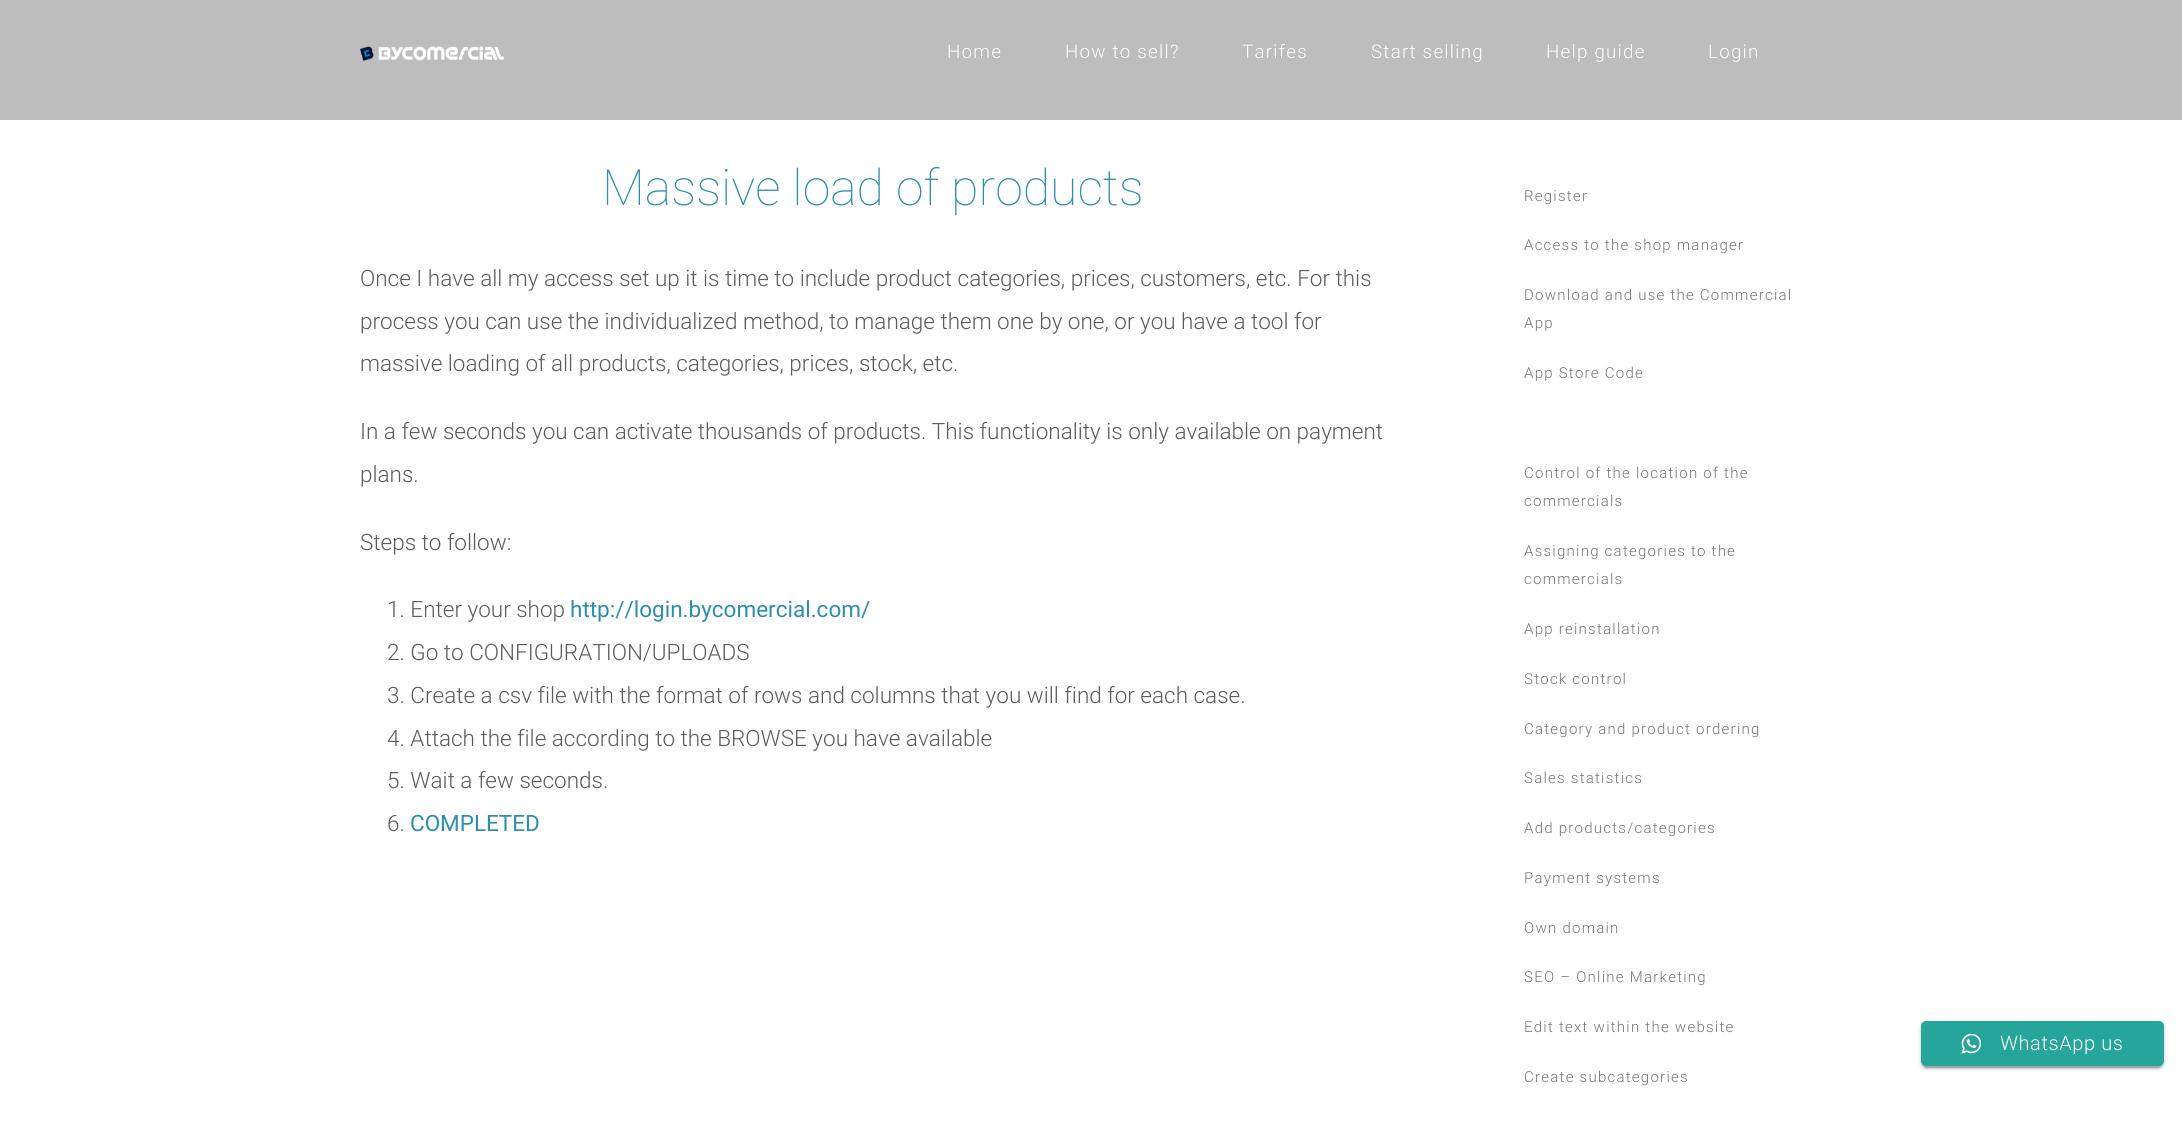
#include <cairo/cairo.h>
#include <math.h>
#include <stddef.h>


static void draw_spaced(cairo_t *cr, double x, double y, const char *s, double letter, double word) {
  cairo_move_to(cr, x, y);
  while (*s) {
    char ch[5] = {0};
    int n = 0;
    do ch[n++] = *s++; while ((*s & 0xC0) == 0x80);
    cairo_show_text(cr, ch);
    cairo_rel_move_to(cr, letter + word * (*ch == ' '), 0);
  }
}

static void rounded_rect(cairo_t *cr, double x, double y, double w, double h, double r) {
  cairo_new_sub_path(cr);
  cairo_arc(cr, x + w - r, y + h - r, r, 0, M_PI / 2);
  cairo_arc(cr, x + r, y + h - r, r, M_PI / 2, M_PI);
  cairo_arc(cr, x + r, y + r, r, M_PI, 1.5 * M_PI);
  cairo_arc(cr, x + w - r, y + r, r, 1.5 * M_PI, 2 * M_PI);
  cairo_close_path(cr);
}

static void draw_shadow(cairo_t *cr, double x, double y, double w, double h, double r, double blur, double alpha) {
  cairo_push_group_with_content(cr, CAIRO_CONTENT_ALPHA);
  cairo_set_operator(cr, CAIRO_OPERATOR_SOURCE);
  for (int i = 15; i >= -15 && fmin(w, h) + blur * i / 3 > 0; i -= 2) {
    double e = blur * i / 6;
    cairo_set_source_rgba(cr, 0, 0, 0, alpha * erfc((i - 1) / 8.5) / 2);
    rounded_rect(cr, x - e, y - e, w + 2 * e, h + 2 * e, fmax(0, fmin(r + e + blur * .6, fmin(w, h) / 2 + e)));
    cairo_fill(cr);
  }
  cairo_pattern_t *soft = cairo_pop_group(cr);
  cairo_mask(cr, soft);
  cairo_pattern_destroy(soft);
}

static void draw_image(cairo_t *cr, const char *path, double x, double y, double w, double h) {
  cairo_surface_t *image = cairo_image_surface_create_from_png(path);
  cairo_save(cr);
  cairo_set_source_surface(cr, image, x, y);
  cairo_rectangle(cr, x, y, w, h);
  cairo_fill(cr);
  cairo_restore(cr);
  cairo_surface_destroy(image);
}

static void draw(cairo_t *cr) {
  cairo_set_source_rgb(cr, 1, 1, 1);
  cairo_paint(cr);
  cairo_set_source_rgb(cr, 189 / 255.0, 189 / 255.0, 189 / 255.0);
  cairo_rectangle(cr, 0, 0, 2182, 120);
  cairo_fill(cr);
  draw_image(cr, "images/1.png", 360, 46, 144, 15);
  cairo_set_source_rgb(cr, 0, 0, 0);
  draw_shadow(cr, 1924, 1028, 237, 40, 2.5, 0.5, 0.2);
  draw_shadow(cr, 1921, 1023, 243, 45, 5, 3, 0.12);
  draw_shadow(cr, 1921, 1024, 243, 45, 5, 1, 0.14);
  cairo_set_source_rgb(cr, 38 / 255.0, 166 / 255.0, 154 / 255.0);
  rounded_rect(cr, 1921, 1021, 243, 45, 5);
  cairo_fill(cr);
  draw_image(cr, "images/2.png", 1961, 1034, 20, 20);
  cairo_select_font_face(cr, "Roboto Light", CAIRO_FONT_SLANT_NORMAL, CAIRO_FONT_WEIGHT_NORMAL);
  cairo_set_font_size(cr, 18.75);
  cairo_set_source_rgb(cr, 1, 1, 1);
  draw_spaced(cr, 947, 58, "Home", 1.25, 0);
  draw_spaced(cr, 1065, 58, "How to sell?", 1.25, 0);
  draw_spaced(cr, 1242, 58, "Tarifes", 1.25, 0);
  draw_spaced(cr, 1371, 58, "Start selling", 1.25, 0);
  draw_spaced(cr, 1546, 58, "Help guide", 1.25, 0);
  draw_spaced(cr, 1708, 58, "Login", 1.25, 0);
  cairo_select_font_face(cr, "Roboto Thin", CAIRO_FONT_SLANT_NORMAL, CAIRO_FONT_WEIGHT_NORMAL);
  cairo_set_font_size(cr, 50);
  cairo_set_source_rgb(cr, 45 / 255.0, 141 / 255.0, 179 / 255.0);
  cairo_move_to(cr, 602, 205);
  cairo_show_text(cr, "Massive load of products");
  cairo_select_font_face(cr, "Roboto Light", CAIRO_FONT_SLANT_NORMAL, CAIRO_FONT_WEIGHT_NORMAL);
  cairo_set_font_size(cr, 22.5);
  cairo_set_source_rgb(cr, 92 / 255.0, 92 / 255.0, 92 / 255.0);
  cairo_move_to(cr, 360, 286);
  cairo_show_text(cr, "Once I have all my access set up it is time to include product categories, prices, customers, etc. For this");
  cairo_move_to(cr, 360, 329);
  cairo_show_text(cr, "process you can use the individualized method, to manage them one by one, or you have a tool for");
  cairo_move_to(cr, 360, 371);
  cairo_show_text(cr, "massive loading of all products, categories, prices, stock, etc.");
  cairo_move_to(cr, 360, 439);
  cairo_show_text(cr, "In a few seconds you can activate thousands of products. This functionality is only available on payment");
  cairo_move_to(cr, 360, 482);
  cairo_show_text(cr, "plans.");
  cairo_move_to(cr, 360, 550);
  cairo_show_text(cr, "Steps to follow:");
  cairo_move_to(cr, 387, 617);
  cairo_show_text(cr, "1. Enter your shop");
  cairo_select_font_face(cr, "Roboto", CAIRO_FONT_SLANT_NORMAL, CAIRO_FONT_WEIGHT_NORMAL);
  cairo_set_source_rgb(cr, 45 / 255.0, 141 / 255.0, 179 / 255.0);
  cairo_move_to(cr, 570, 617);
  cairo_show_text(cr, "http://login.bycomercial.com/");
  cairo_select_font_face(cr, "Roboto Light", CAIRO_FONT_SLANT_NORMAL, CAIRO_FONT_WEIGHT_NORMAL);
  cairo_set_source_rgb(cr, 92 / 255.0, 92 / 255.0, 92 / 255.0);
  cairo_move_to(cr, 387, 660);
  cairo_show_text(cr, "2. Go to CONFIGURATION/UPLOADS");
  cairo_move_to(cr, 387, 703);
  cairo_show_text(cr, "3. Create a csv file with the format of rows and columns that you will find for each case.");
  cairo_move_to(cr, 387, 746);
  cairo_show_text(cr, "4. Attach the file according to the BROWSE you have available");
  cairo_move_to(cr, 387, 788);
  cairo_show_text(cr, "5. Wait a few seconds.");
  cairo_move_to(cr, 387, 831);
  cairo_show_text(cr, "6.");
  cairo_select_font_face(cr, "Roboto", CAIRO_FONT_SLANT_NORMAL, CAIRO_FONT_WEIGHT_NORMAL);
  cairo_set_source_rgb(cr, 45 / 255.0, 141 / 255.0, 179 / 255.0);
  cairo_move_to(cr, 410, 831);
  cairo_show_text(cr, "COMPLETED");
  cairo_select_font_face(cr, "Roboto Light", CAIRO_FONT_SLANT_NORMAL, CAIRO_FONT_WEIGHT_NORMAL);
  cairo_set_font_size(cr, 15);
  cairo_set_source_rgb(cr, 117 / 255.0, 117 / 255.0, 117 / 255.0);
  draw_spaced(cr, 1524, 201, "Register", 1.25, 0);
  draw_spaced(cr, 1524, 250, "Access to the shop manager", 1.25, 0);
  draw_spaced(cr, 1524, 300, "Download and use the Commercial", 1.25, 0);
  draw_spaced(cr, 1524, 328, "App", 1.25, 0);
  draw_spaced(cr, 1524, 378, "App Store Code", 1.25, 0);
  draw_spaced(cr, 1524, 478, "Control of the location of the", 1.25, 0);
  draw_spaced(cr, 1524, 506, "commercials", 1.25, 0);
  draw_spaced(cr, 1524, 556, "Assigning categories to the", 1.25, 0);
  draw_spaced(cr, 1524, 584, "commercials", 1.25, 0);
  draw_spaced(cr, 1524, 634, "App reinstallation", 1.25, 0);
  draw_spaced(cr, 1524, 684, "Stock control", 1.25, 0);
  draw_spaced(cr, 1524, 734, "Category and product ordering", 1.25, 0);
  draw_spaced(cr, 1524, 783, "Sales statistics", 1.25, 0);
  draw_spaced(cr, 1524, 833, "Add products/categories", 1.25, 0);
  draw_spaced(cr, 1524, 883, "Payment systems", 1.25, 0);
  draw_spaced(cr, 1524, 933, "Own domain", 1.25, 0);
  draw_spaced(cr, 1524, 982, "SEO – Online Marketing", 1.25, 0);
  draw_spaced(cr, 1524, 1032, "Edit text within the website", 1.25, 0);
  draw_spaced(cr, 1524, 1082, "Create subcategories", 1.25, 0);
  cairo_set_font_size(cr, 20);
  cairo_set_source_rgb(cr, 1, 1, 1);
  draw_spaced(cr, 2000, 1050, "WhatsApp us", 0.6, 0);
}

int main(void) {
  cairo_surface_t *surface = cairo_image_surface_create(CAIRO_FORMAT_RGB24, 2182, 1128);
  cairo_t *cr = cairo_create(surface);
  cairo_font_options_t *options = cairo_font_options_create();
  cairo_font_options_set_hint_metrics(options, CAIRO_HINT_METRICS_OFF);
  cairo_font_options_set_hint_style(options, CAIRO_HINT_STYLE_NONE);
  cairo_set_font_options(cr, options);
  cairo_set_miter_limit(cr, 4);
  draw(cr);
  cairo_surface_write_to_png(surface, "out.png");
  cairo_font_options_destroy(options);
  cairo_destroy(cr);
  cairo_surface_destroy(surface);
  return 0;
}
